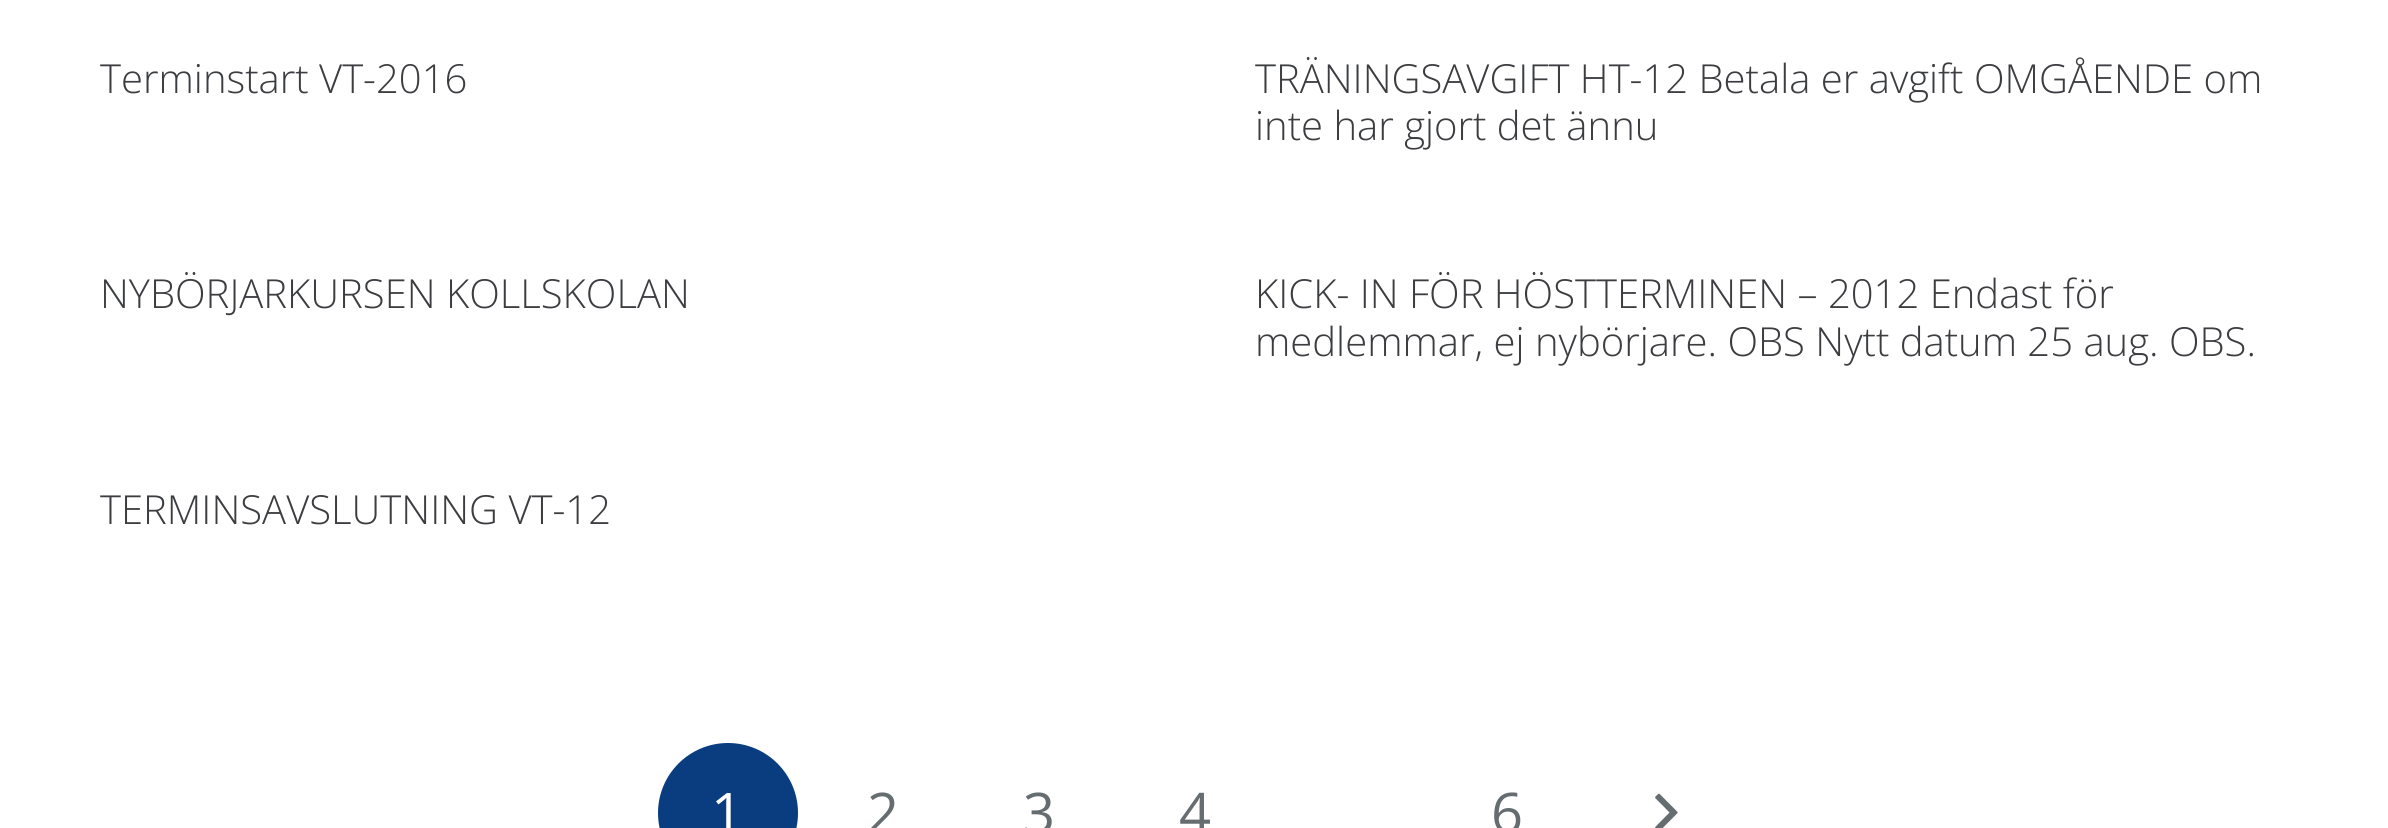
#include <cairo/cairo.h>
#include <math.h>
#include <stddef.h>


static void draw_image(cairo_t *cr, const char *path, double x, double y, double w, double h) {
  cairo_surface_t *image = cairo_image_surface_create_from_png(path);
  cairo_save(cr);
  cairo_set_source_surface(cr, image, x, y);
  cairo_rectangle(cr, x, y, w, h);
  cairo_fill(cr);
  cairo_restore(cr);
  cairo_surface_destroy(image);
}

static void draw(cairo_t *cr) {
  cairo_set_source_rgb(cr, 1, 1, 1);
  cairo_paint(cr);
  cairo_set_source_rgb(cr, 10 / 255.0, 61 / 255.0, 128 / 255.0);
  cairo_arc(cr, 728, 813, 70, 0, 2 * M_PI);
  cairo_fill(cr);
  draw_image(cr, "images/1.png", 1655, 793, 23, 35);
  cairo_select_font_face(cr, "Open Sans Light", CAIRO_FONT_SLANT_NORMAL, CAIRO_FONT_WEIGHT_NORMAL);
  cairo_set_font_size(cr, 40);
  cairo_set_source_rgb(cr, 59 / 255.0, 61 / 255.0, 64 / 255.0);
  cairo_move_to(cr, 100, 93);
  cairo_show_text(cr, "Terminstart VT-2016");
  cairo_move_to(cr, 1255, 93);
  cairo_show_text(cr, "TRÄNINGSAVGIFT HT-12 Betala er avgift OMGÅENDE om");
  cairo_move_to(cr, 1255, 140);
  cairo_show_text(cr, "inte har gjort det ännu");
  cairo_move_to(cr, 100, 308);
  cairo_show_text(cr, "NYBÖRJARKURSEN KOLLSKOLAN");
  cairo_move_to(cr, 1255, 308);
  cairo_show_text(cr, "KICK- IN FÖR HÖSTTERMINEN – 2012 Endast för");
  cairo_move_to(cr, 1255, 356);
  cairo_show_text(cr, "medlemmar, ej nybörjare. OBS Nytt datum 25 aug. OBS.");
  cairo_move_to(cr, 100, 524);
  cairo_show_text(cr, "TERMINSAVSLUTNING VT-12");
  cairo_select_font_face(cr, "Open Sans", CAIRO_FONT_SLANT_NORMAL, CAIRO_FONT_WEIGHT_NORMAL);
  cairo_set_font_size(cr, 56);
  cairo_set_source_rgb(cr, 1, 1, 1);
  cairo_move_to(cr, 711, 833);
  cairo_show_text(cr, "1");
  cairo_set_source_rgb(cr, 102 / 255.0, 109 / 255.0, 112 / 255.0);
  cairo_move_to(cr, 867, 833);
  cairo_show_text(cr, "2");
  cairo_move_to(cr, 1023, 833);
  cairo_show_text(cr, "3");
  cairo_move_to(cr, 1179, 833);
  cairo_show_text(cr, "4");
  cairo_move_to(cr, 1491, 833);
  cairo_show_text(cr, "6");
}

int main(void) {
  cairo_surface_t *surface = cairo_image_surface_create(CAIRO_FORMAT_RGB24, 2388, 828);
  cairo_t *cr = cairo_create(surface);
  cairo_font_options_t *options = cairo_font_options_create();
  cairo_font_options_set_hint_metrics(options, CAIRO_HINT_METRICS_OFF);
  cairo_font_options_set_hint_style(options, CAIRO_HINT_STYLE_NONE);
  cairo_set_font_options(cr, options);
  cairo_set_miter_limit(cr, 4);
  draw(cr);
  cairo_surface_write_to_png(surface, "out.png");
  cairo_font_options_destroy(options);
  cairo_destroy(cr);
  cairo_surface_destroy(surface);
  return 0;
}
